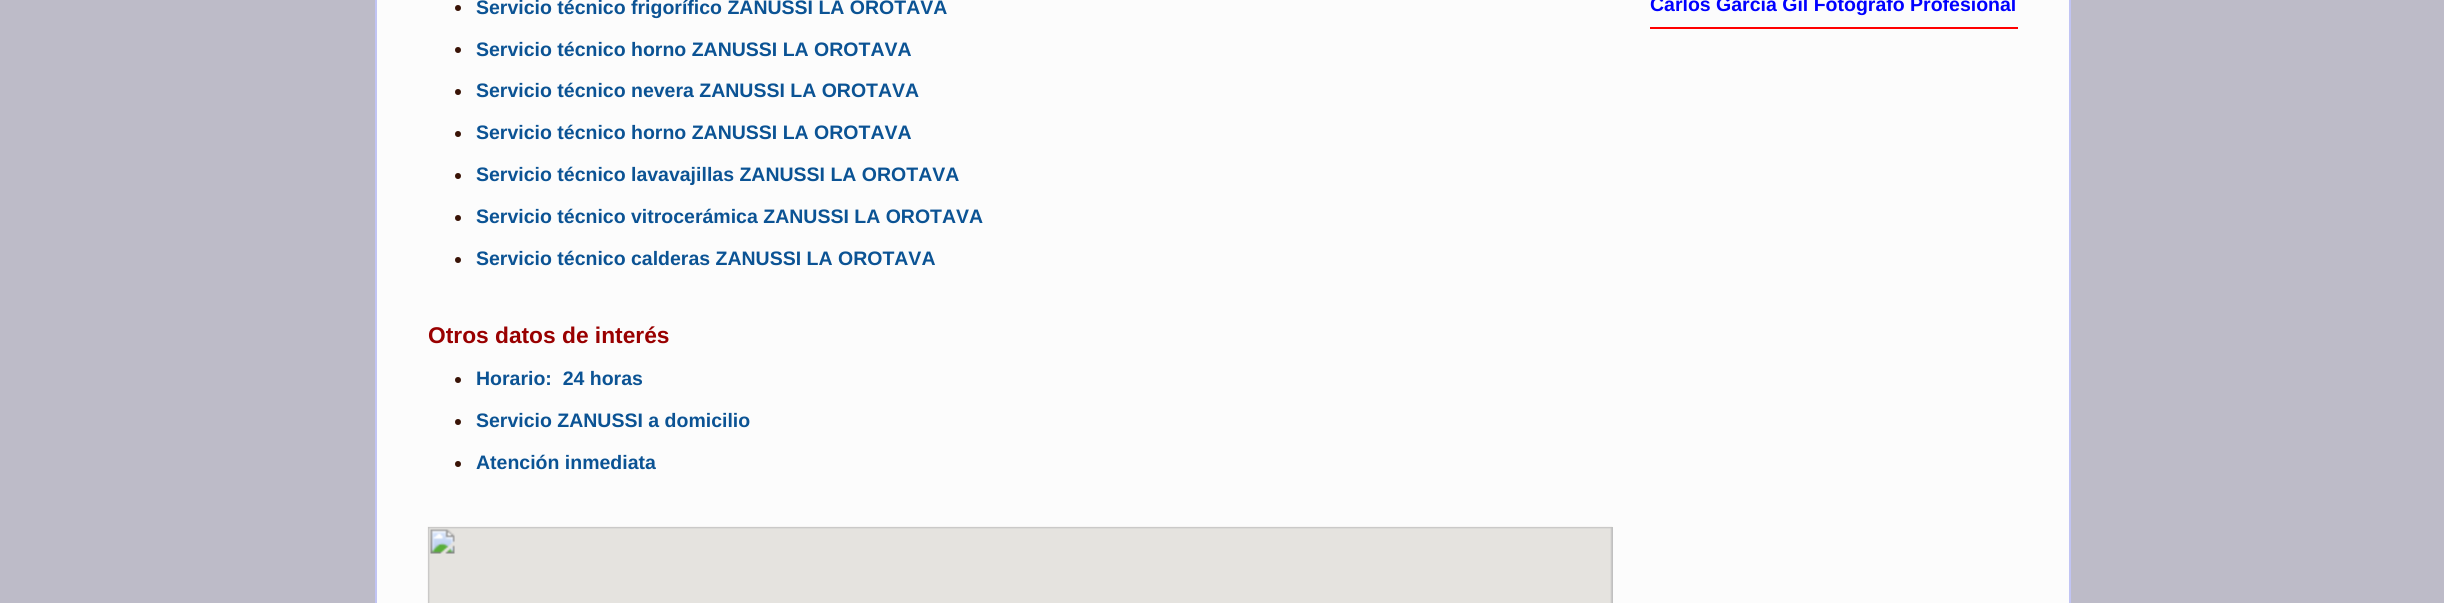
#include <cairo/cairo.h>
#include <math.h>
#include <stddef.h>


static void draw_image(cairo_t *cr, const char *path, double x, double y, double w, double h) {
  cairo_surface_t *image = cairo_image_surface_create_from_png(path);
  cairo_save(cr);
  cairo_set_source_surface(cr, image, x, y);
  cairo_rectangle(cr, x, y, w, h);
  cairo_fill(cr);
  cairo_restore(cr);
  cairo_surface_destroy(image);
}

static void draw(cairo_t *cr) {
  cairo_set_source_rgb(cr, 189 / 255.0, 187 / 255.0, 200 / 255.0);
  cairo_paint(cr);
  cairo_set_source_rgb(cr, 252 / 255.0, 252 / 255.0, 252 / 255.0);
  cairo_rectangle(cr, 377, 0, 1692, 603);
  cairo_fill(cr);
  cairo_set_source_rgb(cr, 193 / 255.0, 196 / 255.0, 244 / 255.0);
  cairo_rectangle(cr, 2069, 0, 2, 603);
  cairo_fill(cr);
  cairo_rectangle(cr, 375, 0, 2, 603);
  cairo_fill(cr);
  cairo_set_source_rgb(cr, 57 / 255.0, 19 / 255.0, 6 / 255.0);
  cairo_arc(cr, 458, 8, 3, 0, 2 * M_PI);
  cairo_fill(cr);
  cairo_arc(cr, 458, 50, 3, 0, 2 * M_PI);
  cairo_fill(cr);
  cairo_arc(cr, 458, 92, 3, 0, 2 * M_PI);
  cairo_fill(cr);
  cairo_arc(cr, 458, 134, 3, 0, 2 * M_PI);
  cairo_fill(cr);
  cairo_arc(cr, 458, 176, 3, 0, 2 * M_PI);
  cairo_fill(cr);
  cairo_arc(cr, 458, 218, 3, 0, 2 * M_PI);
  cairo_fill(cr);
  cairo_arc(cr, 458, 260, 3, 0, 2 * M_PI);
  cairo_fill(cr);
  cairo_arc(cr, 458, 380, 3, 0, 2 * M_PI);
  cairo_fill(cr);
  cairo_arc(cr, 458, 422, 3, 0, 2 * M_PI);
  cairo_fill(cr);
  cairo_arc(cr, 458, 464, 3, 0, 2 * M_PI);
  cairo_fill(cr);
  draw_image(cr, "images/1.png", 427, 526, 1186, 77);
  cairo_set_source_rgb(cr, 1, 0, 0);
  cairo_rectangle(cr, 1650, 27, 368, 2);
  cairo_fill(cr);
  cairo_select_font_face(cr, "Liberation Sans", CAIRO_FONT_SLANT_NORMAL, CAIRO_FONT_WEIGHT_BOLD);
  cairo_set_font_size(cr, 19.5);
  cairo_set_source_rgb(cr, 11 / 255.0, 83 / 255.0, 148 / 255.0);
  cairo_move_to(cr, 476, 14);
  cairo_show_text(cr, "Servicio técnico frigorífico ZANUSSI LA OROTAVA");
  cairo_move_to(cr, 476, 56);
  cairo_show_text(cr, "Servicio técnico horno ZANUSSI LA OROTAVA");
  cairo_move_to(cr, 476, 97);
  cairo_show_text(cr, "Servicio técnico nevera ZANUSSI LA OROTAVA");
  cairo_move_to(cr, 476, 139);
  cairo_show_text(cr, "Servicio técnico horno ZANUSSI LA OROTAVA");
  cairo_move_to(cr, 476, 181);
  cairo_show_text(cr, "Servicio técnico lavavajillas ZANUSSI LA OROTAVA");
  cairo_move_to(cr, 476, 223);
  cairo_show_text(cr, "Servicio técnico vitrocerámica ZANUSSI LA OROTAVA");
  cairo_move_to(cr, 476, 265);
  cairo_show_text(cr, "Servicio técnico calderas ZANUSSI LA OROTAVA");
  cairo_set_font_size(cr, 22.75);
  cairo_set_source_rgb(cr, 153 / 255.0, 0, 0);
  cairo_move_to(cr, 428, 343);
  cairo_show_text(cr, "Otros datos de interés");
  cairo_set_font_size(cr, 19.5);
  cairo_set_source_rgb(cr, 11 / 255.0, 83 / 255.0, 148 / 255.0);
  cairo_move_to(cr, 476, 385);
  cairo_show_text(cr, "Horario:  24 horas");
  cairo_move_to(cr, 476, 427);
  cairo_show_text(cr, "Servicio ZANUSSI a domicilio");
  cairo_move_to(cr, 476, 469);
  cairo_show_text(cr, "Atención inmediata");
  cairo_set_source_rgb(cr, 0, 0, 1);
  cairo_move_to(cr, 1650, 11);
  cairo_show_text(cr, "Carlos García Gil Fotógrafo Profesional");
}

int main(void) {
  cairo_surface_t *surface = cairo_image_surface_create(CAIRO_FORMAT_RGB24, 2444, 603);
  cairo_t *cr = cairo_create(surface);
  cairo_font_options_t *options = cairo_font_options_create();
  cairo_font_options_set_hint_metrics(options, CAIRO_HINT_METRICS_OFF);
  cairo_font_options_set_hint_style(options, CAIRO_HINT_STYLE_NONE);
  cairo_set_font_options(cr, options);
  cairo_set_miter_limit(cr, 4);
  draw(cr);
  cairo_surface_write_to_png(surface, "out.png");
  cairo_font_options_destroy(options);
  cairo_destroy(cr);
  cairo_surface_destroy(surface);
  return 0;
}
